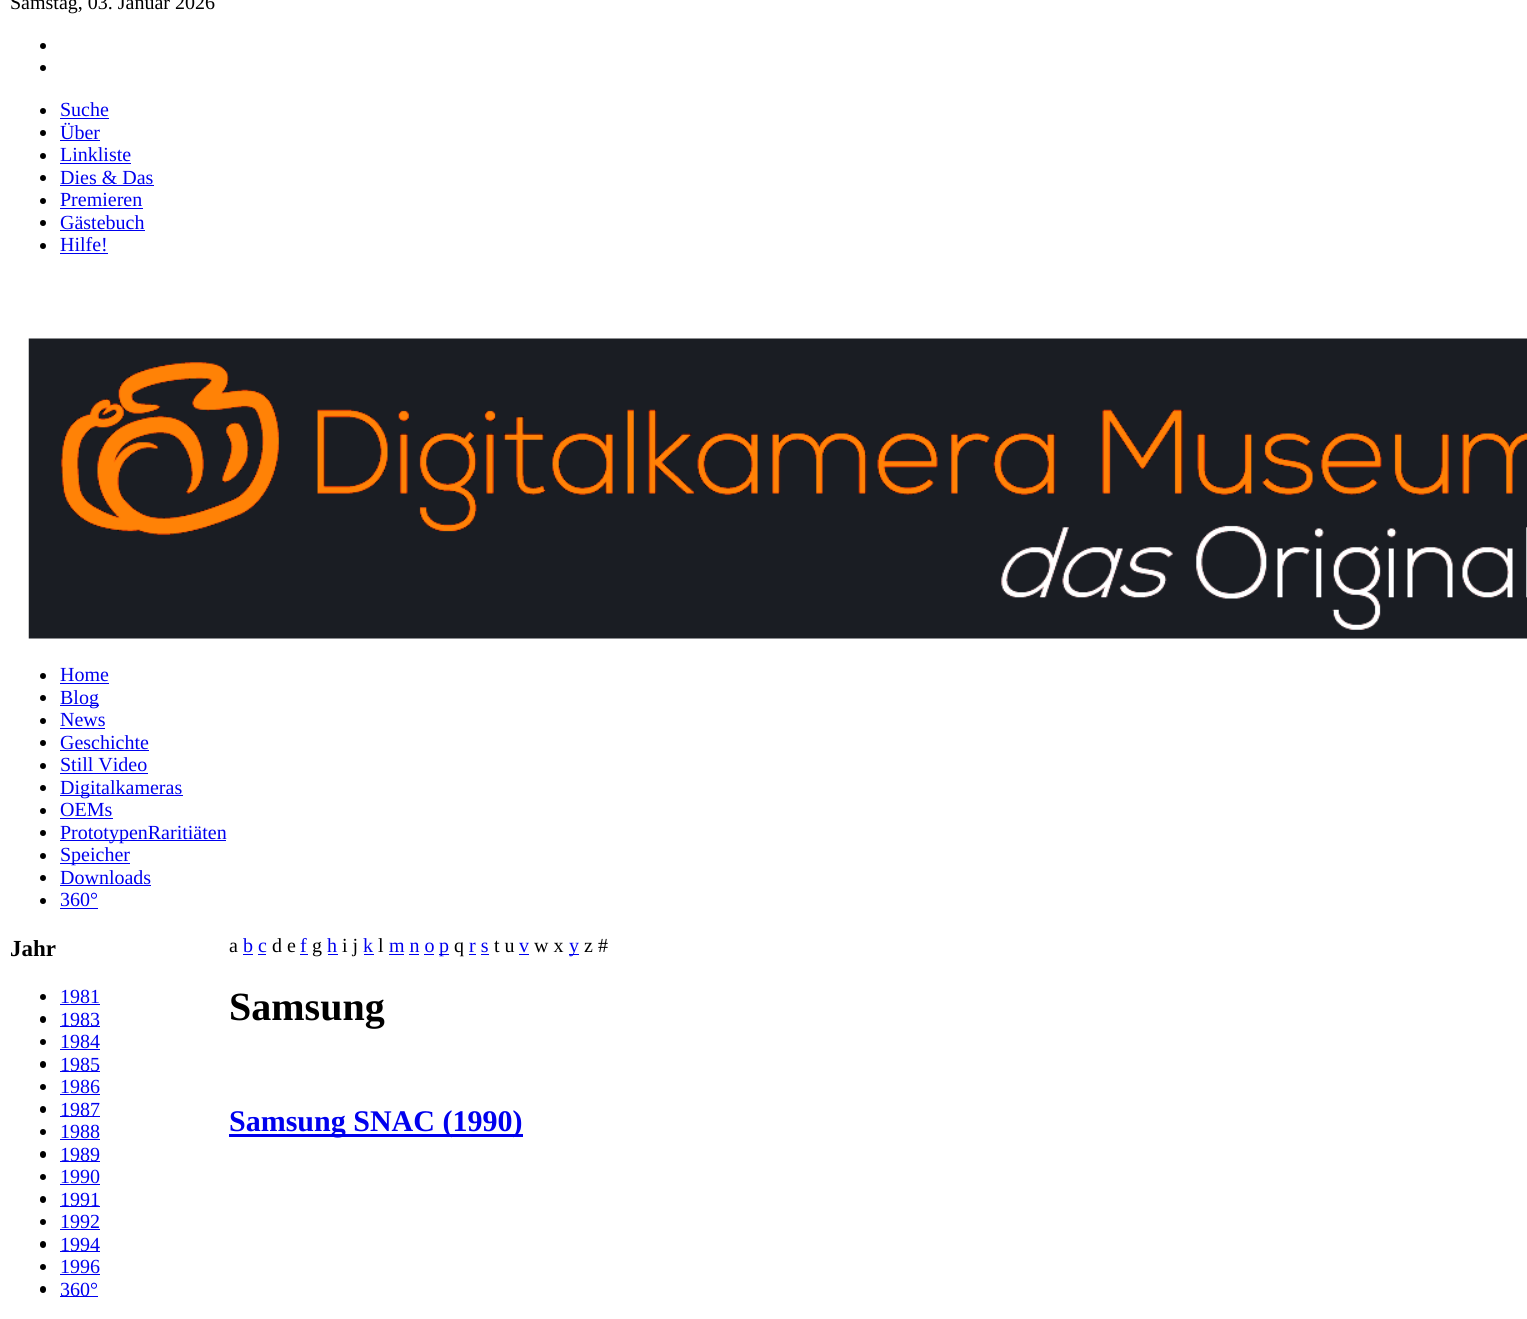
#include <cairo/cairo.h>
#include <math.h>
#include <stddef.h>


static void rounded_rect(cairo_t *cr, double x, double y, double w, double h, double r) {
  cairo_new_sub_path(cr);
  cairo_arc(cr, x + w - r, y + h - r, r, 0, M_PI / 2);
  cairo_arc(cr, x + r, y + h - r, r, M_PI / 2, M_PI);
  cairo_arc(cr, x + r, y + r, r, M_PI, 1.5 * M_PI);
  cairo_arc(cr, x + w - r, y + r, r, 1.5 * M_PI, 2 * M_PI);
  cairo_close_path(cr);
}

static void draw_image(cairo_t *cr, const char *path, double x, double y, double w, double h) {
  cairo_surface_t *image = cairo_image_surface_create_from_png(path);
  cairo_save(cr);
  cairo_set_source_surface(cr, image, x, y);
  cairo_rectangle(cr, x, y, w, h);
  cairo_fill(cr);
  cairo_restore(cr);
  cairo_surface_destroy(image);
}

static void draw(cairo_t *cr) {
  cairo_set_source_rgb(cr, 1, 1, 1);
  cairo_paint(cr);
  cairo_set_source_rgb(cr, 0, 0, 0);
  cairo_arc(cr, 43, 46, 3, 0, 2 * M_PI);
  cairo_fill(cr);
  cairo_arc(cr, 43, 68, 3, 0, 2 * M_PI);
  cairo_fill(cr);
  cairo_arc(cr, 43, 111, 3, 0, 2 * M_PI);
  cairo_fill(cr);
  cairo_set_source_rgb(cr, 0, 0, 238 / 255.0);
  cairo_rectangle(cr, 60, 118, 49, 1);
  cairo_fill(cr);
  cairo_set_source_rgb(cr, 0, 0, 0);
  cairo_arc(cr, 43, 133, 3, 0, 2 * M_PI);
  cairo_fill(cr);
  cairo_set_source_rgb(cr, 0, 0, 238 / 255.0);
  cairo_rectangle(cr, 60, 140, 40, 1);
  cairo_fill(cr);
  cairo_set_source_rgb(cr, 0, 0, 0);
  cairo_arc(cr, 43, 156, 3, 0, 2 * M_PI);
  cairo_fill(cr);
  cairo_set_source_rgb(cr, 0, 0, 238 / 255.0);
  cairo_rectangle(cr, 60, 163, 71, 1);
  cairo_fill(cr);
  cairo_set_source_rgb(cr, 0, 0, 0);
  cairo_arc(cr, 43, 178, 3, 0, 2 * M_PI);
  cairo_fill(cr);
  cairo_set_source_rgb(cr, 0, 0, 238 / 255.0);
  cairo_rectangle(cr, 60, 185, 94, 1);
  cairo_fill(cr);
  cairo_set_source_rgb(cr, 0, 0, 0);
  cairo_arc(cr, 43, 201, 3, 0, 2 * M_PI);
  cairo_fill(cr);
  cairo_set_source_rgb(cr, 0, 0, 238 / 255.0);
  cairo_rectangle(cr, 60, 208, 83, 1);
  cairo_fill(cr);
  cairo_set_source_rgb(cr, 0, 0, 0);
  cairo_arc(cr, 43, 223, 3, 0, 2 * M_PI);
  cairo_fill(cr);
  cairo_set_source_rgb(cr, 0, 0, 238 / 255.0);
  cairo_rectangle(cr, 60, 230, 85, 1);
  cairo_fill(cr);
  cairo_set_source_rgb(cr, 0, 0, 0);
  cairo_arc(cr, 43, 246, 3, 0, 2 * M_PI);
  cairo_fill(cr);
  cairo_set_source_rgb(cr, 0, 0, 238 / 255.0);
  cairo_rectangle(cr, 60, 253, 48, 1);
  cairo_fill(cr);
  draw_image(cr, "images/1.png", 28, 338, 1499, 301);
  cairo_set_source_rgb(cr, 0, 0, 0);
  cairo_arc(cr, 43, 676, 3, 0, 2 * M_PI);
  cairo_fill(cr);
  cairo_set_source_rgb(cr, 0, 0, 238 / 255.0);
  cairo_rectangle(cr, 60, 683, 49, 1);
  cairo_fill(cr);
  cairo_set_source_rgb(cr, 0, 0, 0);
  cairo_arc(cr, 43, 698, 3, 0, 2 * M_PI);
  cairo_fill(cr);
  cairo_set_source_rgb(cr, 0, 0, 238 / 255.0);
  cairo_rectangle(cr, 60, 705, 39, 1);
  cairo_fill(cr);
  cairo_set_source_rgb(cr, 0, 0, 0);
  cairo_arc(cr, 43, 721, 3, 0, 2 * M_PI);
  cairo_fill(cr);
  cairo_set_source_rgb(cr, 0, 0, 238 / 255.0);
  cairo_rectangle(cr, 60, 728, 45, 1);
  cairo_fill(cr);
  cairo_set_source_rgb(cr, 0, 0, 0);
  cairo_arc(cr, 43, 743, 3, 0, 2 * M_PI);
  cairo_fill(cr);
  cairo_set_source_rgb(cr, 0, 0, 238 / 255.0);
  cairo_rectangle(cr, 60, 750, 89, 1);
  cairo_fill(cr);
  cairo_set_source_rgb(cr, 0, 0, 0);
  cairo_arc(cr, 43, 766, 3, 0, 2 * M_PI);
  cairo_fill(cr);
  cairo_set_source_rgb(cr, 0, 0, 238 / 255.0);
  cairo_rectangle(cr, 60, 773, 88, 1);
  cairo_fill(cr);
  cairo_set_source_rgb(cr, 0, 0, 0);
  cairo_arc(cr, 43, 788, 3, 0, 2 * M_PI);
  cairo_fill(cr);
  cairo_set_source_rgb(cr, 0, 0, 238 / 255.0);
  cairo_rectangle(cr, 60, 795, 123, 1);
  cairo_fill(cr);
  cairo_set_source_rgb(cr, 0, 0, 0);
  cairo_arc(cr, 43, 811, 3, 0, 2 * M_PI);
  cairo_fill(cr);
  cairo_set_source_rgb(cr, 0, 0, 238 / 255.0);
  cairo_rectangle(cr, 60, 818, 53, 1);
  cairo_fill(cr);
  cairo_set_source_rgb(cr, 0, 0, 0);
  cairo_arc(cr, 43, 833, 3, 0, 2 * M_PI);
  cairo_fill(cr);
  cairo_set_source_rgb(cr, 0, 0, 238 / 255.0);
  cairo_rectangle(cr, 60, 840, 166, 1);
  cairo_fill(cr);
  cairo_set_source_rgb(cr, 0, 0, 0);
  cairo_arc(cr, 43, 856, 3, 0, 2 * M_PI);
  cairo_fill(cr);
  cairo_set_source_rgb(cr, 0, 0, 238 / 255.0);
  cairo_rectangle(cr, 60, 863, 70, 1);
  cairo_fill(cr);
  cairo_set_source_rgb(cr, 0, 0, 0);
  cairo_arc(cr, 43, 878, 3, 0, 2 * M_PI);
  cairo_fill(cr);
  cairo_set_source_rgb(cr, 0, 0, 238 / 255.0);
  cairo_rectangle(cr, 60, 885, 91, 1);
  cairo_fill(cr);
  cairo_set_source_rgb(cr, 0, 0, 0);
  cairo_arc(cr, 43, 901, 3, 0, 2 * M_PI);
  cairo_fill(cr);
  cairo_set_source_rgb(cr, 0, 0, 238 / 255.0);
  cairo_rectangle(cr, 60, 908, 38, 1);
  cairo_fill(cr);
  cairo_set_source_rgb(cr, 0, 0, 0);
  cairo_arc(cr, 43, 997, 3, 0, 2 * M_PI);
  cairo_fill(cr);
  cairo_set_source_rgb(cr, 0, 0, 238 / 255.0);
  cairo_rectangle(cr, 60, 1004, 40, 1);
  cairo_fill(cr);
  cairo_set_source_rgb(cr, 0, 0, 0);
  rounded_rect(cr, 40, 1016, 6, 7, 3);
  cairo_fill(cr);
  cairo_set_source_rgb(cr, 0, 0, 238 / 255.0);
  cairo_rectangle(cr, 60, 1026, 40, 1);
  cairo_fill(cr);
  cairo_set_source_rgb(cr, 0, 0, 0);
  cairo_arc(cr, 43, 1042, 3, 0, 2 * M_PI);
  cairo_fill(cr);
  cairo_set_source_rgb(cr, 0, 0, 238 / 255.0);
  cairo_rectangle(cr, 60, 1049, 40, 1);
  cairo_fill(cr);
  cairo_set_source_rgb(cr, 0, 0, 0);
  rounded_rect(cr, 40, 1061, 6, 7, 3);
  cairo_fill(cr);
  cairo_set_source_rgb(cr, 0, 0, 238 / 255.0);
  cairo_rectangle(cr, 60, 1071, 40, 1);
  cairo_fill(cr);
  cairo_set_source_rgb(cr, 0, 0, 0);
  cairo_arc(cr, 43, 1087, 3, 0, 2 * M_PI);
  cairo_fill(cr);
  cairo_set_source_rgb(cr, 0, 0, 238 / 255.0);
  cairo_rectangle(cr, 60, 1094, 40, 1);
  cairo_fill(cr);
  cairo_set_source_rgb(cr, 0, 0, 0);
  rounded_rect(cr, 40, 1106, 6, 7, 3);
  cairo_fill(cr);
  cairo_set_source_rgb(cr, 0, 0, 238 / 255.0);
  cairo_rectangle(cr, 60, 1116, 40, 1);
  cairo_fill(cr);
  cairo_set_source_rgb(cr, 0, 0, 0);
  cairo_arc(cr, 43, 1132, 3, 0, 2 * M_PI);
  cairo_fill(cr);
  cairo_set_source_rgb(cr, 0, 0, 238 / 255.0);
  cairo_rectangle(cr, 60, 1139, 40, 1);
  cairo_fill(cr);
  cairo_set_source_rgb(cr, 0, 0, 0);
  rounded_rect(cr, 40, 1151, 6, 7, 3);
  cairo_fill(cr);
  cairo_set_source_rgb(cr, 0, 0, 238 / 255.0);
  cairo_rectangle(cr, 60, 1161, 40, 1);
  cairo_fill(cr);
  cairo_set_source_rgb(cr, 0, 0, 0);
  cairo_arc(cr, 43, 1177, 3, 0, 2 * M_PI);
  cairo_fill(cr);
  cairo_set_source_rgb(cr, 0, 0, 238 / 255.0);
  cairo_rectangle(cr, 60, 1184, 40, 1);
  cairo_fill(cr);
  cairo_set_source_rgb(cr, 0, 0, 0);
  rounded_rect(cr, 40, 1196, 6, 7, 3);
  cairo_fill(cr);
  cairo_set_source_rgb(cr, 0, 0, 238 / 255.0);
  cairo_rectangle(cr, 60, 1206, 40, 1);
  cairo_fill(cr);
  cairo_set_source_rgb(cr, 0, 0, 0);
  cairo_arc(cr, 43, 1222, 3, 0, 2 * M_PI);
  cairo_fill(cr);
  cairo_set_source_rgb(cr, 0, 0, 238 / 255.0);
  cairo_rectangle(cr, 60, 1229, 40, 1);
  cairo_fill(cr);
  cairo_set_source_rgb(cr, 0, 0, 0);
  rounded_rect(cr, 40, 1241, 6, 7, 3);
  cairo_fill(cr);
  cairo_set_source_rgb(cr, 0, 0, 238 / 255.0);
  cairo_rectangle(cr, 60, 1251, 40, 1);
  cairo_fill(cr);
  cairo_set_source_rgb(cr, 0, 0, 0);
  cairo_arc(cr, 43, 1267, 3, 0, 2 * M_PI);
  cairo_fill(cr);
  cairo_set_source_rgb(cr, 0, 0, 238 / 255.0);
  cairo_rectangle(cr, 60, 1274, 40, 1);
  cairo_fill(cr);
  cairo_set_source_rgb(cr, 0, 0, 0);
  rounded_rect(cr, 40, 1286, 6, 7, 3);
  cairo_fill(cr);
  cairo_set_source_rgb(cr, 0, 0, 238 / 255.0);
  cairo_rectangle(cr, 60, 1296, 38, 1);
  cairo_fill(cr);
  cairo_rectangle(cr, 243, 954, 10, 1);
  cairo_fill(cr);
  cairo_rectangle(cr, 300, 954, 8, 1);
  cairo_fill(cr);
  cairo_rectangle(cr, 328, 954, 10, 1);
  cairo_fill(cr);
  cairo_rectangle(cr, 364, 954, 10, 1);
  cairo_fill(cr);
  cairo_rectangle(cr, 389, 954, 15, 1);
  cairo_fill(cr);
  cairo_rectangle(cr, 439, 954, 10, 1);
  cairo_fill(cr);
  cairo_rectangle(cr, 469, 954, 7, 1);
  cairo_fill(cr);
  cairo_rectangle(cr, 519, 954, 10, 1);
  cairo_fill(cr);
  cairo_rectangle(cr, 569, 954, 10, 1);
  cairo_fill(cr);
  cairo_rectangle(cr, 258, 954, 8, 1);
  cairo_fill(cr);
  cairo_rectangle(cr, 409, 954, 10, 1);
  cairo_fill(cr);
  cairo_rectangle(cr, 424, 954, 10, 1);
  cairo_fill(cr);
  cairo_rectangle(cr, 481, 954, 8, 1);
  cairo_fill(cr);
  cairo_rectangle(cr, 229, 1134, 294, 3);
  cairo_fill(cr);
  cairo_select_font_face(cr, "Liberation Serif", CAIRO_FONT_SLANT_NORMAL, CAIRO_FONT_WEIGHT_NORMAL);
  cairo_set_font_size(cr, 20);
  cairo_set_source_rgb(cr, 0, 0, 0);
  cairo_move_to(cr, 10, 9);
  cairo_show_text(cr, "Samstag, 03. Januar 2026");
  cairo_set_source_rgb(cr, 0, 0, 238 / 255.0);
  cairo_move_to(cr, 60, 116);
  cairo_show_text(cr, "Suche");
  cairo_move_to(cr, 60, 139);
  cairo_show_text(cr, "Über");
  cairo_move_to(cr, 60, 161);
  cairo_show_text(cr, "Linkliste");
  cairo_move_to(cr, 60, 184);
  cairo_show_text(cr, "Dies & Das");
  cairo_move_to(cr, 60, 206);
  cairo_show_text(cr, "Premieren");
  cairo_move_to(cr, 60, 229);
  cairo_show_text(cr, "Gästebuch");
  cairo_move_to(cr, 60, 251);
  cairo_show_text(cr, "Hilfe!");
  cairo_move_to(cr, 60, 681);
  cairo_show_text(cr, "Home");
  cairo_move_to(cr, 60, 704);
  cairo_show_text(cr, "Blog");
  cairo_move_to(cr, 60, 726);
  cairo_show_text(cr, "News");
  cairo_move_to(cr, 60, 749);
  cairo_show_text(cr, "Geschichte");
  cairo_move_to(cr, 60, 771);
  cairo_show_text(cr, "Still Video");
  cairo_move_to(cr, 60, 794);
  cairo_show_text(cr, "Digitalkameras");
  cairo_move_to(cr, 60, 816);
  cairo_show_text(cr, "OEMs");
  cairo_move_to(cr, 60, 839);
  cairo_show_text(cr, "PrototypenRaritiäten");
  cairo_move_to(cr, 60, 861);
  cairo_show_text(cr, "Speicher");
  cairo_move_to(cr, 60, 884);
  cairo_show_text(cr, "Downloads");
  cairo_move_to(cr, 60, 906);
  cairo_show_text(cr, "360°");
  cairo_select_font_face(cr, "Liberation Serif", CAIRO_FONT_SLANT_NORMAL, CAIRO_FONT_WEIGHT_BOLD);
  cairo_set_font_size(cr, 23);
  cairo_set_source_rgb(cr, 0, 0, 0);
  cairo_move_to(cr, 10, 956);
  cairo_show_text(cr, "Jahr");
  cairo_select_font_face(cr, "Liberation Serif", CAIRO_FONT_SLANT_NORMAL, CAIRO_FONT_WEIGHT_NORMAL);
  cairo_set_font_size(cr, 20);
  cairo_set_source_rgb(cr, 0, 0, 238 / 255.0);
  cairo_move_to(cr, 60, 1003);
  cairo_show_text(cr, "1981");
  cairo_move_to(cr, 60, 1026);
  cairo_show_text(cr, "1983");
  cairo_move_to(cr, 60, 1048);
  cairo_show_text(cr, "1984");
  cairo_move_to(cr, 60, 1071);
  cairo_show_text(cr, "1985");
  cairo_move_to(cr, 60, 1093);
  cairo_show_text(cr, "1986");
  cairo_move_to(cr, 60, 1116);
  cairo_show_text(cr, "1987");
  cairo_move_to(cr, 60, 1138);
  cairo_show_text(cr, "1988");
  cairo_move_to(cr, 60, 1161);
  cairo_show_text(cr, "1989");
  cairo_move_to(cr, 60, 1183);
  cairo_show_text(cr, "1990");
  cairo_move_to(cr, 60, 1206);
  cairo_show_text(cr, "1991");
  cairo_move_to(cr, 60, 1228);
  cairo_show_text(cr, "1992");
  cairo_move_to(cr, 60, 1251);
  cairo_show_text(cr, "1994");
  cairo_move_to(cr, 60, 1273);
  cairo_show_text(cr, "1996");
  cairo_move_to(cr, 60, 1296);
  cairo_show_text(cr, "360°");
  cairo_set_source_rgb(cr, 0, 0, 0);
  cairo_move_to(cr, 229, 952);
  cairo_show_text(cr, "a");
  cairo_set_source_rgb(cr, 0, 0, 238 / 255.0);
  cairo_move_to(cr, 243, 952);
  cairo_show_text(cr, "b c");
  cairo_set_source_rgb(cr, 0, 0, 0);
  cairo_move_to(cr, 272, 952);
  cairo_show_text(cr, "d e");
  cairo_set_source_rgb(cr, 0, 0, 238 / 255.0);
  cairo_move_to(cr, 300, 952);
  cairo_show_text(cr, "f");
  cairo_set_source_rgb(cr, 0, 0, 0);
  cairo_move_to(cr, 312, 952);
  cairo_show_text(cr, "g");
  cairo_set_source_rgb(cr, 0, 0, 238 / 255.0);
  cairo_move_to(cr, 327, 952);
  cairo_show_text(cr, "h");
  cairo_set_source_rgb(cr, 0, 0, 0);
  cairo_move_to(cr, 342, 952);
  cairo_show_text(cr, "i j");
  cairo_set_source_rgb(cr, 0, 0, 238 / 255.0);
  cairo_move_to(cr, 363, 952);
  cairo_show_text(cr, "k");
  cairo_set_source_rgb(cr, 0, 0, 0);
  cairo_move_to(cr, 378, 952);
  cairo_show_text(cr, "l");
  cairo_set_source_rgb(cr, 0, 0, 238 / 255.0);
  cairo_move_to(cr, 389, 952);
  cairo_show_text(cr, "m n o");
  cairo_move_to(cr, 439, 952);
  cairo_show_text(cr, "p");
  cairo_set_source_rgb(cr, 0, 0, 0);
  cairo_move_to(cr, 454, 952);
  cairo_show_text(cr, "q");
  cairo_set_source_rgb(cr, 0, 0, 238 / 255.0);
  cairo_move_to(cr, 469, 952);
  cairo_show_text(cr, "r s");
  cairo_set_source_rgb(cr, 0, 0, 0);
  cairo_move_to(cr, 494, 952);
  cairo_show_text(cr, "t u");
  cairo_set_source_rgb(cr, 0, 0, 238 / 255.0);
  cairo_move_to(cr, 519, 952);
  cairo_show_text(cr, "v");
  cairo_set_source_rgb(cr, 0, 0, 0);
  cairo_move_to(cr, 534, 952);
  cairo_show_text(cr, "w x");
  cairo_set_source_rgb(cr, 0, 0, 238 / 255.0);
  cairo_move_to(cr, 569, 952);
  cairo_show_text(cr, "y");
  cairo_set_source_rgb(cr, 0, 0, 0);
  cairo_move_to(cr, 584, 952);
  cairo_show_text(cr, "z #");
  cairo_select_font_face(cr, "Liberation Serif", CAIRO_FONT_SLANT_NORMAL, CAIRO_FONT_WEIGHT_BOLD);
  cairo_set_font_size(cr, 40);
  cairo_move_to(cr, 229, 1020);
  cairo_show_text(cr, "Samsung");
  cairo_set_font_size(cr, 30);
  cairo_set_source_rgb(cr, 0, 0, 238 / 255.0);
  cairo_move_to(cr, 229, 1131);
  cairo_show_text(cr, "Samsung SNAC (1990)");
}

int main(void) {
  cairo_surface_t *surface = cairo_image_surface_create(CAIRO_FORMAT_RGB24, 1527, 1319);
  cairo_t *cr = cairo_create(surface);
  cairo_font_options_t *options = cairo_font_options_create();
  cairo_font_options_set_hint_metrics(options, CAIRO_HINT_METRICS_OFF);
  cairo_font_options_set_hint_style(options, CAIRO_HINT_STYLE_NONE);
  cairo_set_font_options(cr, options);
  cairo_set_miter_limit(cr, 4);
  draw(cr);
  cairo_surface_write_to_png(surface, "out.png");
  cairo_font_options_destroy(options);
  cairo_destroy(cr);
  cairo_surface_destroy(surface);
  return 0;
}
